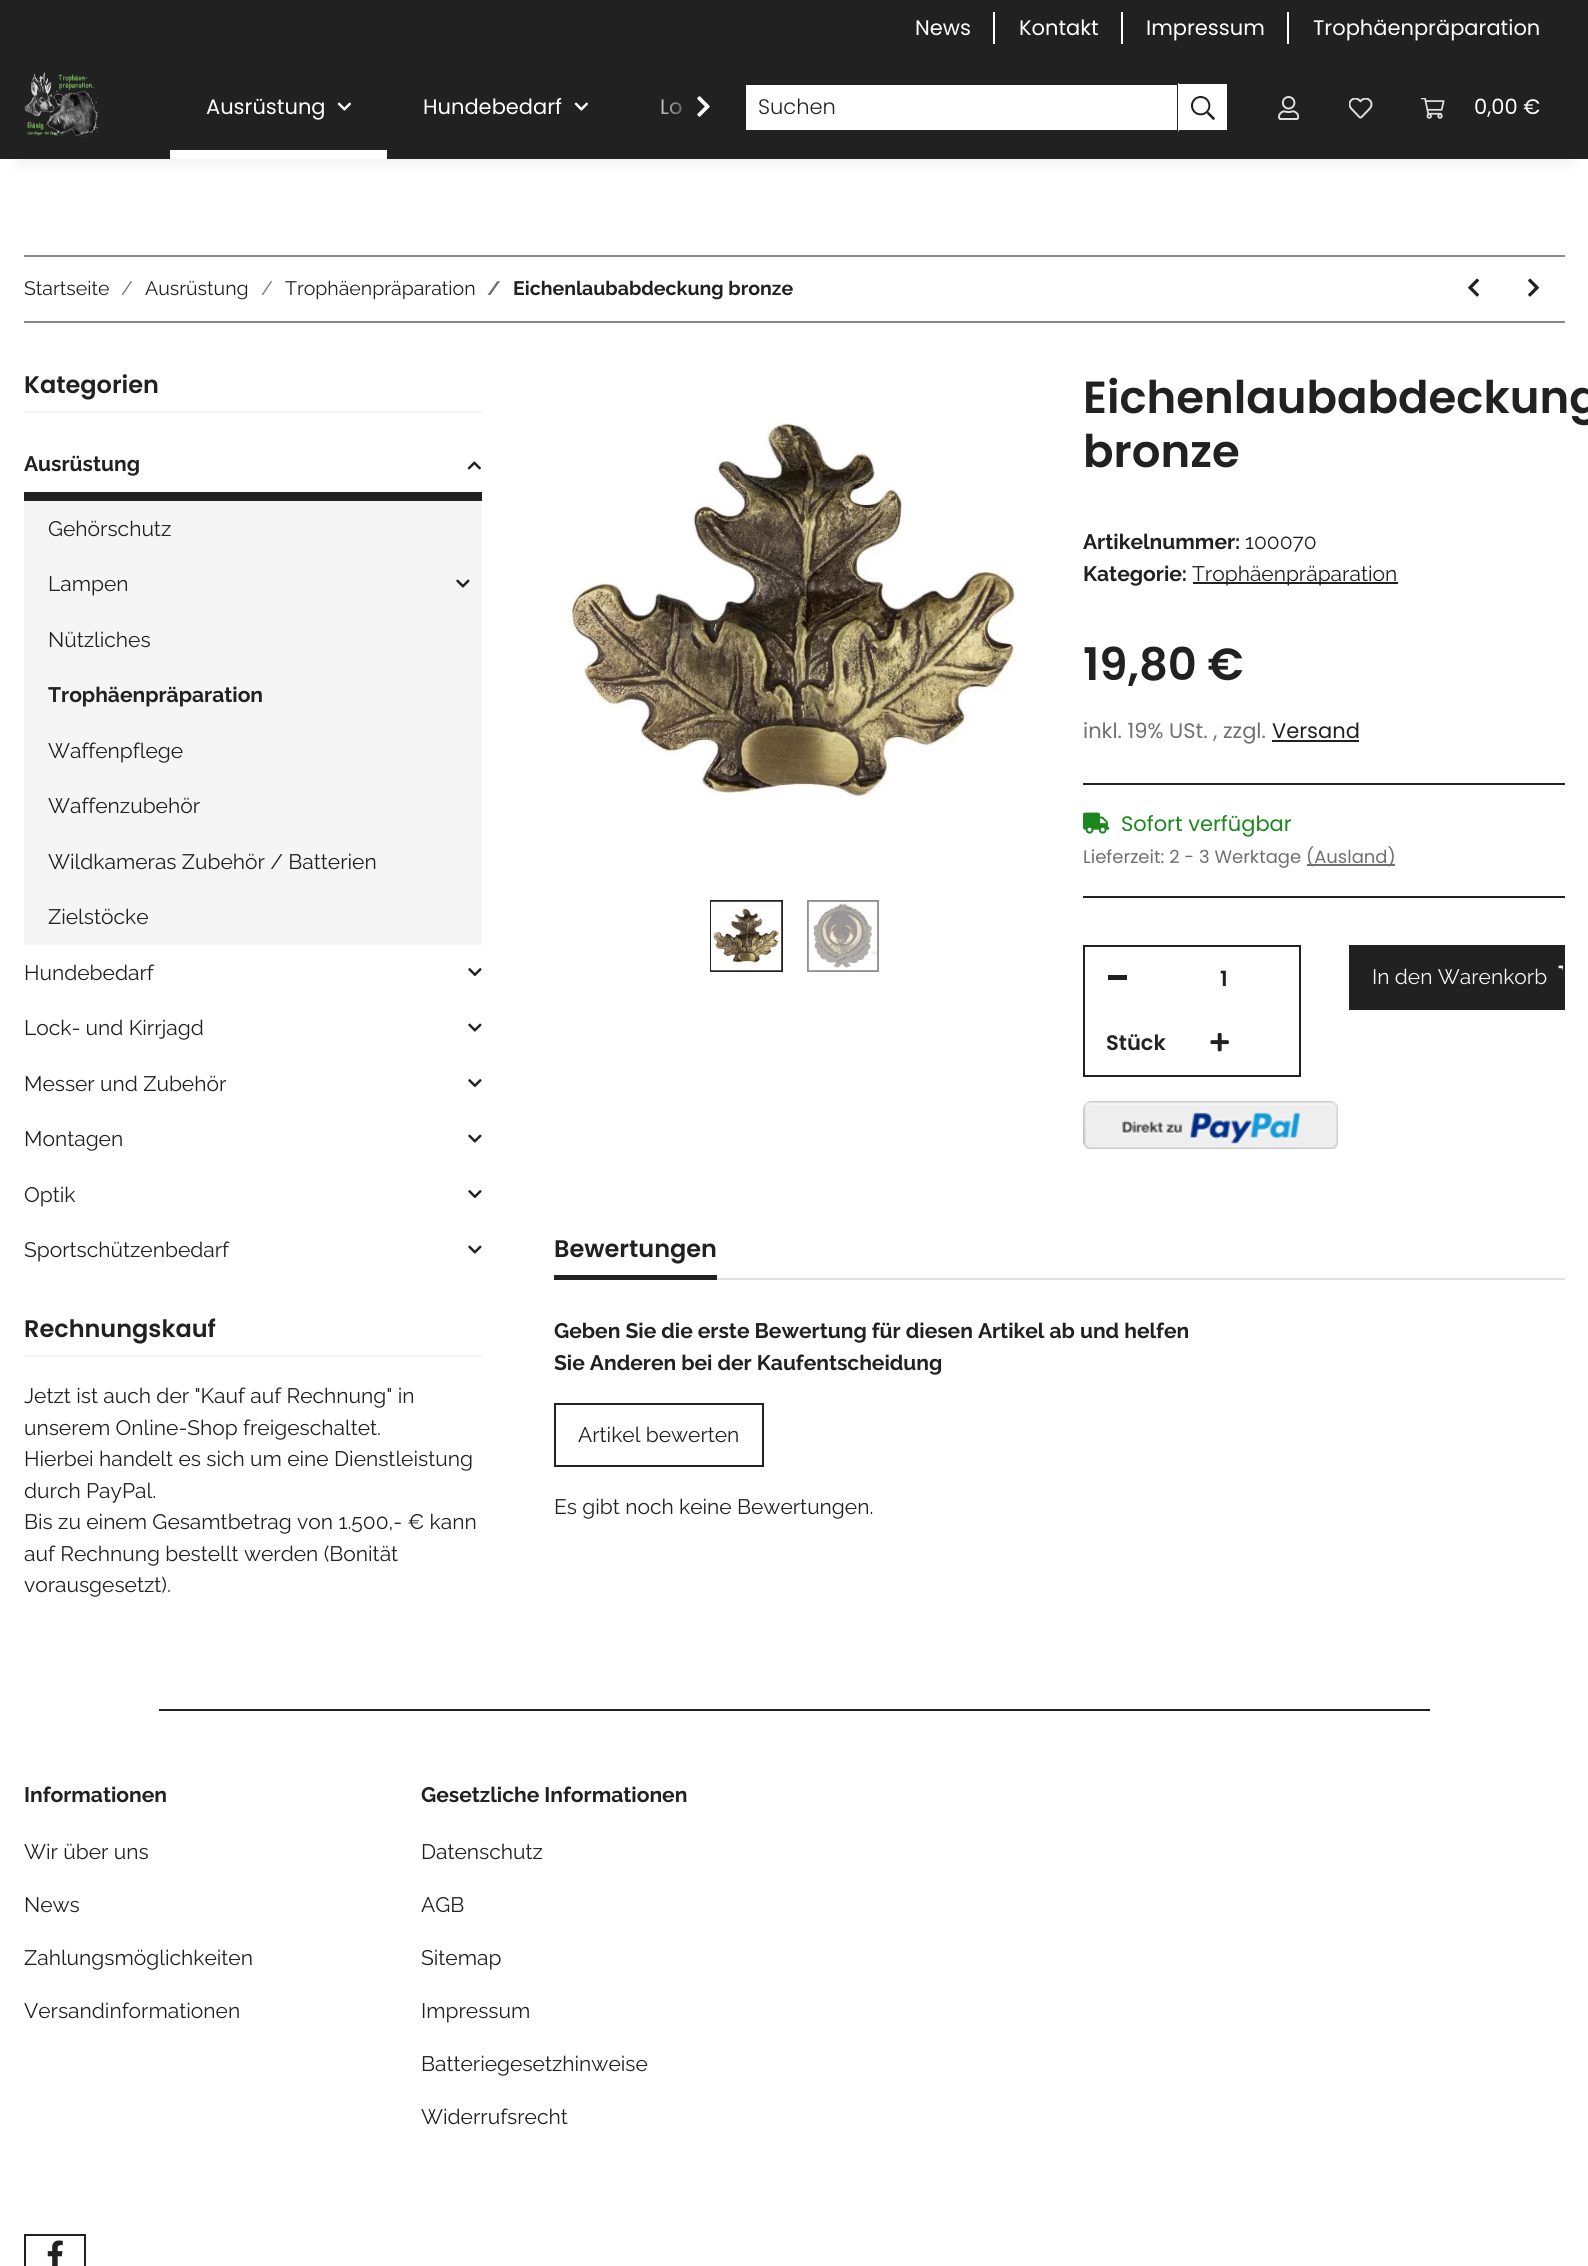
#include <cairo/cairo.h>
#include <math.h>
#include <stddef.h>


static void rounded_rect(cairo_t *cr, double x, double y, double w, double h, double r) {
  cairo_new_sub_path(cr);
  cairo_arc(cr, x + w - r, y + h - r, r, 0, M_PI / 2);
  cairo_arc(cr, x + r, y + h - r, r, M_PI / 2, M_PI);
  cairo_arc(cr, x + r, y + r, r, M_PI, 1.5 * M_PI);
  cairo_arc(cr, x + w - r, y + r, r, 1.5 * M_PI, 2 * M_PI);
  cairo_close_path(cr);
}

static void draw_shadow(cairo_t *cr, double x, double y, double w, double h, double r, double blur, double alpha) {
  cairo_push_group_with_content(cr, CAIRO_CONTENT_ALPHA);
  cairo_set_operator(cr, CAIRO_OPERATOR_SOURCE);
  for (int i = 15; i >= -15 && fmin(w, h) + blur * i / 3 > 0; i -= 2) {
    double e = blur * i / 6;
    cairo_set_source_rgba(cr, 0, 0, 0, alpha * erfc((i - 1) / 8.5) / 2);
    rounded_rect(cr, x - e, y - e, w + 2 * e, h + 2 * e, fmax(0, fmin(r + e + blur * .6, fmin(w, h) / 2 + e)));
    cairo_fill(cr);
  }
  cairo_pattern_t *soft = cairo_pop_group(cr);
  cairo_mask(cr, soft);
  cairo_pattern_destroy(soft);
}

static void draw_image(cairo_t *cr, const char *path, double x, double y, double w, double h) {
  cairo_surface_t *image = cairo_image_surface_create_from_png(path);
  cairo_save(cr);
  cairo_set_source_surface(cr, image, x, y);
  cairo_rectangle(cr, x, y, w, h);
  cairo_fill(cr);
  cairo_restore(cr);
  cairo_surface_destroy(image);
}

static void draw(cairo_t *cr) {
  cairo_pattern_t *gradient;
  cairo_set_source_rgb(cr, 1, 1, 1);
  cairo_paint(cr);
  cairo_set_source_rgb(cr, 0, 0, 0);
  draw_shadow(cr, 18, 98, 1553, 67, 0, 7, 0.06);
  cairo_set_source_rgb(cr, 33 / 255.0, 33 / 255.0, 33 / 255.0);
  cairo_rectangle(cr, 0, 0, 1588, 159);
  cairo_fill(cr);
  cairo_set_source_rgb(cr, 1, 1, 1);
  cairo_rectangle(cr, 993, 12, 2, 32);
  cairo_fill(cr);
  cairo_rectangle(cr, 1121, 12, 2, 32);
  cairo_fill(cr);
  cairo_rectangle(cr, 1287, 12, 2, 32);
  cairo_fill(cr);
  draw_image(cr, "images/1.png", 24, 72, 74, 65);
  draw_image(cr, "images/2.png", 337, 102, 14, 9);
  cairo_rectangle(cr, 170, 150, 217, 9);
  cairo_fill(cr);
  draw_image(cr, "images/2.png", 574, 102, 14, 9);
  draw_image(cr, "images/3.png", 697, 96, 13, 21);
  cairo_rectangle(cr, 746, 85, 431, 45);
  cairo_fill(cr);
  cairo_rectangle(cr, 1178, 83, 49, 49);
  cairo_fill(cr);
  cairo_set_source_rgb(cr, 33 / 255.0, 33 / 255.0, 33 / 255.0);
  cairo_new_path(cr);
  cairo_move_to(cr, 1178, 82);
  cairo_line_to(cr, 1228, 82);
  cairo_line_to(cr, 1227, 84);
  cairo_line_to(cr, 1179, 84);
  cairo_close_path(cr);
  cairo_move_to(cr, 1228, 132);
  cairo_line_to(cr, 1178, 132);
  cairo_line_to(cr, 1179, 130);
  cairo_line_to(cr, 1227, 130);
  cairo_close_path(cr);
  cairo_fill(cr);
  draw_image(cr, "images/4.png", 1191, 96, 24, 24);
  draw_image(cr, "images/5.png", 1278, 96, 21, 24);
  draw_image(cr, "images/6.png", 1349, 98, 24, 21);
  draw_image(cr, "images/7.png", 1421, 98, 24, 21);
  cairo_set_source_rgb(cr, 136 / 255.0, 136 / 255.0, 136 / 255.0);
  cairo_rectangle(cr, 24, 255, 1541, 2);
  cairo_fill(cr);
  cairo_rectangle(cr, 24, 321, 1541, 2);
  cairo_fill(cr);
  draw_image(cr, "images/8.png", 1468, 278, 11, 19);
  draw_image(cr, "images/9.png", 1528, 278, 11, 19);
  cairo_set_source_rgb(cr, 245 / 255.0, 245 / 255.0, 245 / 255.0);
  cairo_rectangle(cr, 24, 411, 458, 2);
  cairo_fill(cr);
  cairo_set_source_rgb(cr, 33 / 255.0, 33 / 255.0, 33 / 255.0);
  cairo_rectangle(cr, 24, 492, 458, 9);
  cairo_fill(cr);
  draw_image(cr, "images/10.png", 467, 461, 14, 9);
  cairo_set_source_rgb(cr, 245 / 255.0, 245 / 255.0, 245 / 255.0);
  cairo_rectangle(cr, 24, 501, 458, 444);
  cairo_fill(cr);
  draw_image(cr, "images/11.png", 456, 579, 14, 9);
  draw_image(cr, "images/12.png", 468, 968, 14, 9);
  draw_image(cr, "images/13.png", 468, 1023, 14, 9);
  draw_image(cr, "images/12.png", 468, 1079, 14, 9);
  draw_image(cr, "images/13.png", 468, 1134, 14, 9);
  draw_image(cr, "images/12.png", 468, 1190, 14, 9);
  draw_image(cr, "images/13.png", 468, 1245, 14, 9);
  cairo_rectangle(cr, 24, 1355, 458, 2);
  cairo_fill(cr);
  draw_image(cr, "images/14.png", 567, 422, 449, 376);
  cairo_rectangle(cr, 711, 901, 71, 70);
  cairo_set_source_rgb(cr, 33 / 255.0, 33 / 255.0, 33 / 255.0);
  cairo_stroke(cr);
  draw_image(cr, "images/15.png", 711, 901, 71, 70);
  cairo_rectangle(cr, 808, 901, 70, 70);
  cairo_set_source_rgb(cr, 144 / 255.0, 144 / 255.0, 144 / 255.0);
  cairo_stroke(cr);
  draw_image(cr, "images/16.png", 808, 901, 70, 70);
  cairo_set_source_rgb(cr, 33 / 255.0, 33 / 255.0, 33 / 255.0);
  cairo_rectangle(cr, 1193, 582, 205, 2);
  cairo_fill(cr);
  cairo_rectangle(cr, 1272, 740, 87, 2);
  cairo_fill(cr);
  cairo_rectangle(cr, 1083, 783, 482, 2);
  cairo_fill(cr);
  cairo_rectangle(cr, 1083, 896, 482, 2);
  cairo_fill(cr);
  draw_image(cr, "images/17.png", 1083, 812, 27, 22);
  cairo_set_source_rgb(cr, 112 / 255.0, 112 / 255.0, 112 / 255.0);
  cairo_rectangle(cr, 1307, 864, 88, 2);
  cairo_fill(cr);
  cairo_rectangle(cr, 1084, 946, 216, 130);
  cairo_set_source_rgb(cr, 33 / 255.0, 33 / 255.0, 33 / 255.0);
  cairo_stroke(cr);
  cairo_rectangle(cr, 1108, 975, 19, 5);
  cairo_fill(cr);
  draw_image(cr, "images/18.png", 1210, 1032, 19, 20);
  cairo_rectangle(cr, 1349, 945, 216, 65);
  cairo_fill(cr);
  draw_image(cr, "images/19.png", 1558, 965, 5, 6);
  draw_image(cr, "images/20.png", 1083, 1101, 255, 48);
  cairo_set_source_rgb(cr, 222 / 255.0, 226 / 255.0, 230 / 255.0);
  cairo_rectangle(cr, 717, 1278, 848, 2);
  cairo_fill(cr);
  cairo_set_source_rgb(cr, 33 / 255.0, 33 / 255.0, 33 / 255.0);
  cairo_rectangle(cr, 554, 1275, 163, 5);
  cairo_fill(cr);
  cairo_rectangle(cr, 555, 1404, 208, 62);
  cairo_stroke(cr);
  cairo_rectangle(cr, 159, 1709, 1271, 2);
  cairo_fill(cr);
  cairo_rectangle(cr, 25, 2235, 60, 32);
  cairo_stroke(cr);
  draw_image(cr, "images/21.png", 47, 2240, 16, 26);
  cairo_select_font_face(cr, "Poppins", CAIRO_FONT_SLANT_NORMAL, CAIRO_FONT_WEIGHT_NORMAL);
  cairo_set_font_size(cr, 21);
  cairo_set_source_rgb(cr, 1, 1, 1);
  cairo_move_to(cr, 915, 35);
  cairo_show_text(cr, "News");
  cairo_move_to(cr, 1019, 35);
  cairo_show_text(cr, "Kontakt");
  cairo_move_to(cr, 1146, 35);
  cairo_show_text(cr, "Impressum");
  cairo_move_to(cr, 1313, 35);
  cairo_show_text(cr, "Trophäenpräparation");
  cairo_move_to(cr, 206, 114);
  cairo_show_text(cr, "Ausrüstung");
  cairo_move_to(cr, 423, 114);
  cairo_show_text(cr, "Hundebedarf");
  cairo_move_to(cr, 660, 114);
  cairo_show_text(cr, "Lo");
  gradient = cairo_pattern_create_linear(648, 108, 720, 108);
  cairo_pattern_add_color_stop_rgba(gradient, 0, 33 / 255.0, 33 / 255.0, 33 / 255.0, 0.01);
  cairo_pattern_add_color_stop_rgba(gradient, 0.7, 33 / 255.0, 33 / 255.0, 33 / 255.0, 1);
  cairo_set_source(cr, gradient);
  cairo_pattern_destroy(gradient);
  cairo_rectangle(cr, 661, 99, 21, 16);
  cairo_fill(cr);
  cairo_select_font_face(cr, "Poppins Light", CAIRO_FONT_SLANT_NORMAL, CAIRO_FONT_WEIGHT_NORMAL);
  cairo_set_source_rgb(cr, 33 / 255.0, 33 / 255.0, 33 / 255.0);
  cairo_move_to(cr, 758, 114);
  cairo_show_text(cr, "Suchen");
  cairo_select_font_face(cr, "Poppins", CAIRO_FONT_SLANT_NORMAL, CAIRO_FONT_WEIGHT_NORMAL);
  cairo_set_source_rgb(cr, 1, 1, 1);
  cairo_move_to(cr, 1474, 114);
  cairo_show_text(cr, "0,00 €");
  cairo_select_font_face(cr, "Raleway", CAIRO_FONT_SLANT_NORMAL, CAIRO_FONT_WEIGHT_NORMAL);
  cairo_set_font_size(cr, 19.5);
  cairo_set_source_rgb(cr, 33 / 255.0, 33 / 255.0, 33 / 255.0);
  cairo_move_to(cr, 24, 295);
  cairo_show_text(cr, "Startseite");
  cairo_set_source_rgb(cr, 112 / 255.0, 112 / 255.0, 112 / 255.0);
  cairo_move_to(cr, 121, 295);
  cairo_show_text(cr, "/");
  cairo_set_source_rgb(cr, 33 / 255.0, 33 / 255.0, 33 / 255.0);
  cairo_move_to(cr, 145, 295);
  cairo_show_text(cr, "Ausrüstung");
  cairo_set_source_rgb(cr, 112 / 255.0, 112 / 255.0, 112 / 255.0);
  cairo_move_to(cr, 261, 295);
  cairo_show_text(cr, "/");
  cairo_set_source_rgb(cr, 33 / 255.0, 33 / 255.0, 33 / 255.0);
  cairo_move_to(cr, 285, 295);
  cairo_show_text(cr, "Trophäenpräparation");
  cairo_select_font_face(cr, "Raleway", CAIRO_FONT_SLANT_NORMAL, CAIRO_FONT_WEIGHT_BOLD);
  cairo_set_source_rgb(cr, 112 / 255.0, 112 / 255.0, 112 / 255.0);
  cairo_move_to(cr, 487, 295);
  cairo_show_text(cr, "/");
  cairo_set_source_rgb(cr, 33 / 255.0, 33 / 255.0, 33 / 255.0);
  cairo_move_to(cr, 513, 295);
  cairo_show_text(cr, "Eichenlaubabdeckung bronze");
  cairo_select_font_face(cr, "Poppins SemiBold", CAIRO_FONT_SLANT_NORMAL, CAIRO_FONT_WEIGHT_NORMAL);
  cairo_set_font_size(cr, 24);
  cairo_move_to(cr, 24, 393);
  cairo_show_text(cr, "Kategorien");
  cairo_select_font_face(cr, "Raleway", CAIRO_FONT_SLANT_NORMAL, CAIRO_FONT_WEIGHT_BOLD);
  cairo_set_font_size(cr, 21);
  cairo_move_to(cr, 24, 471);
  cairo_show_text(cr, "Ausrüstung");
  cairo_select_font_face(cr, "Raleway", CAIRO_FONT_SLANT_NORMAL, CAIRO_FONT_WEIGHT_NORMAL);
  cairo_move_to(cr, 48, 536);
  cairo_show_text(cr, "Gehörschutz");
  cairo_move_to(cr, 48, 591);
  cairo_show_text(cr, "Lampen");
  cairo_move_to(cr, 48, 647);
  cairo_show_text(cr, "Nützliches");
  cairo_select_font_face(cr, "Raleway", CAIRO_FONT_SLANT_NORMAL, CAIRO_FONT_WEIGHT_BOLD);
  cairo_move_to(cr, 48, 702);
  cairo_show_text(cr, "Trophäenpräparation");
  cairo_select_font_face(cr, "Raleway", CAIRO_FONT_SLANT_NORMAL, CAIRO_FONT_WEIGHT_NORMAL);
  cairo_move_to(cr, 48, 758);
  cairo_show_text(cr, "Waffenpflege");
  cairo_move_to(cr, 48, 813);
  cairo_show_text(cr, "Waffenzubehör");
  cairo_move_to(cr, 48, 869);
  cairo_show_text(cr, "Wildkameras Zubehör / Batterien");
  cairo_move_to(cr, 48, 924);
  cairo_show_text(cr, "Zielstöcke");
  cairo_move_to(cr, 24, 980);
  cairo_show_text(cr, "Hundebedarf");
  cairo_move_to(cr, 24, 1035);
  cairo_show_text(cr, "Lock- und Kirrjagd");
  cairo_move_to(cr, 24, 1091);
  cairo_show_text(cr, "Messer und Zubehör");
  cairo_move_to(cr, 24, 1146);
  cairo_show_text(cr, "Montagen");
  cairo_move_to(cr, 24, 1202);
  cairo_show_text(cr, "Optik");
  cairo_move_to(cr, 24, 1257);
  cairo_show_text(cr, "Sportschützenbedarf");
  cairo_select_font_face(cr, "Poppins SemiBold", CAIRO_FONT_SLANT_NORMAL, CAIRO_FONT_WEIGHT_NORMAL);
  cairo_set_font_size(cr, 24);
  cairo_move_to(cr, 24, 1337);
  cairo_show_text(cr, "Rechnungskauf");
  cairo_select_font_face(cr, "Raleway", CAIRO_FONT_SLANT_NORMAL, CAIRO_FONT_WEIGHT_NORMAL);
  cairo_set_font_size(cr, 21);
  cairo_move_to(cr, 24, 1403);
  cairo_show_text(cr, "Jetzt ist auch der \"Kauf auf Rechnung\" in");
  cairo_move_to(cr, 24, 1435);
  cairo_show_text(cr, "unserem Online-Shop freigeschaltet.");
  cairo_move_to(cr, 24, 1466);
  cairo_show_text(cr, "Hierbei handelt es sich um eine Dienstleistung");
  cairo_move_to(cr, 24, 1498);
  cairo_show_text(cr, "durch PayPal.");
  cairo_move_to(cr, 24, 1529);
  cairo_show_text(cr, "Bis zu einem Gesamtbetrag von 1.500,- € kann");
  cairo_move_to(cr, 24, 1561);
  cairo_show_text(cr, "auf Rechnung bestellt werden (Bonität");
  cairo_move_to(cr, 24, 1592);
  cairo_show_text(cr, "vorausgesetzt).");
  cairo_select_font_face(cr, "Poppins SemiBold", CAIRO_FONT_SLANT_NORMAL, CAIRO_FONT_WEIGHT_NORMAL);
  cairo_set_font_size(cr, 45);
  cairo_move_to(cr, 1083, 413);
  cairo_show_text(cr, "Eichenlaubabdeckung");
  cairo_move_to(cr, 1083, 467);
  cairo_show_text(cr, "bronze");
  cairo_select_font_face(cr, "Raleway", CAIRO_FONT_SLANT_NORMAL, CAIRO_FONT_WEIGHT_BOLD);
  cairo_set_font_size(cr, 21);
  cairo_move_to(cr, 1083, 549);
  cairo_show_text(cr, "Artikelnummer:");
  cairo_select_font_face(cr, "Raleway", CAIRO_FONT_SLANT_NORMAL, CAIRO_FONT_WEIGHT_NORMAL);
  cairo_move_to(cr, 1245, 549);
  cairo_show_text(cr, "100070");
  cairo_select_font_face(cr, "Raleway", CAIRO_FONT_SLANT_NORMAL, CAIRO_FONT_WEIGHT_BOLD);
  cairo_move_to(cr, 1083, 581);
  cairo_show_text(cr, "Kategorie:");
  cairo_select_font_face(cr, "Raleway", CAIRO_FONT_SLANT_NORMAL, CAIRO_FONT_WEIGHT_NORMAL);
  cairo_move_to(cr, 1192, 581);
  cairo_show_text(cr, "Trophäenpräparation");
  cairo_select_font_face(cr, "Poppins SemiBold", CAIRO_FONT_SLANT_NORMAL, CAIRO_FONT_WEIGHT_NORMAL);
  cairo_set_font_size(cr, 45);
  cairo_move_to(cr, 1083, 680);
  cairo_show_text(cr, "19,80 €");
  cairo_select_font_face(cr, "Poppins", CAIRO_FONT_SLANT_NORMAL, CAIRO_FONT_WEIGHT_NORMAL);
  cairo_set_font_size(cr, 21);
  cairo_set_source_rgb(cr, 112 / 255.0, 112 / 255.0, 112 / 255.0);
  cairo_move_to(cr, 1083, 738);
  cairo_show_text(cr, "inkl. 19% USt. , zzgl.");
  cairo_set_source_rgb(cr, 33 / 255.0, 33 / 255.0, 33 / 255.0);
  cairo_move_to(cr, 1272, 738);
  cairo_show_text(cr, "Versand");
  cairo_set_source_rgb(cr, 28 / 255.0, 135 / 255.0, 30 / 255.0);
  cairo_move_to(cr, 1121, 831);
  cairo_show_text(cr, "Sofort verfügbar");
  cairo_set_font_size(cr, 18);
  cairo_set_source_rgb(cr, 112 / 255.0, 112 / 255.0, 112 / 255.0);
  cairo_move_to(cr, 1083, 863);
  cairo_show_text(cr, "Lieferzeit: 2 - 3 Werktage");
  cairo_move_to(cr, 1306, 863);
  cairo_show_text(cr, "(Ausland)");
  cairo_select_font_face(cr, "Poppins SemiBold", CAIRO_FONT_SLANT_NORMAL, CAIRO_FONT_WEIGHT_NORMAL);
  cairo_set_font_size(cr, 21);
  cairo_set_source_rgb(cr, 33 / 255.0, 33 / 255.0, 33 / 255.0);
  cairo_move_to(cr, 1220, 986);
  cairo_show_text(cr, "1");
  cairo_move_to(cr, 1106, 1050);
  cairo_show_text(cr, "Stück");
  cairo_select_font_face(cr, "Raleway", CAIRO_FONT_SLANT_NORMAL, CAIRO_FONT_WEIGHT_NORMAL);
  cairo_set_source_rgb(cr, 245 / 255.0, 245 / 255.0, 245 / 255.0);
  cairo_move_to(cr, 1372, 984);
  cairo_show_text(cr, "In den Warenkorb");
  cairo_select_font_face(cr, "Poppins SemiBold", CAIRO_FONT_SLANT_NORMAL, CAIRO_FONT_WEIGHT_NORMAL);
  cairo_set_font_size(cr, 24);
  cairo_set_source_rgb(cr, 33 / 255.0, 33 / 255.0, 33 / 255.0);
  cairo_move_to(cr, 554, 1257);
  cairo_show_text(cr, "Bewertungen");
  cairo_select_font_face(cr, "Raleway", CAIRO_FONT_SLANT_NORMAL, CAIRO_FONT_WEIGHT_BOLD);
  cairo_set_font_size(cr, 21);
  cairo_move_to(cr, 554, 1338);
  cairo_show_text(cr, "Geben Sie die erste Bewertung für diesen Artikel ab und helfen");
  cairo_move_to(cr, 554, 1370);
  cairo_show_text(cr, "Sie Anderen bei der Kaufentscheidung");
  cairo_select_font_face(cr, "Raleway", CAIRO_FONT_SLANT_NORMAL, CAIRO_FONT_WEIGHT_NORMAL);
  cairo_move_to(cr, 578, 1442);
  cairo_show_text(cr, "Artikel bewerten");
  cairo_move_to(cr, 554, 1514);
  cairo_show_text(cr, "Es gibt noch keine Bewertungen.");
  cairo_select_font_face(cr, "Raleway", CAIRO_FONT_SLANT_NORMAL, CAIRO_FONT_WEIGHT_BOLD);
  cairo_move_to(cr, 24, 1802);
  cairo_show_text(cr, "Informationen");
  cairo_select_font_face(cr, "Raleway", CAIRO_FONT_SLANT_NORMAL, CAIRO_FONT_WEIGHT_NORMAL);
  cairo_move_to(cr, 24, 1859);
  cairo_show_text(cr, "Wir über uns");
  cairo_move_to(cr, 24, 1912);
  cairo_show_text(cr, "News");
  cairo_move_to(cr, 24, 1965);
  cairo_show_text(cr, "Zahlungsmöglichkeiten");
  cairo_move_to(cr, 24, 2018);
  cairo_show_text(cr, "Versandinformationen");
  cairo_select_font_face(cr, "Raleway", CAIRO_FONT_SLANT_NORMAL, CAIRO_FONT_WEIGHT_BOLD);
  cairo_move_to(cr, 421, 1802);
  cairo_show_text(cr, "Gesetzliche Informationen");
  cairo_select_font_face(cr, "Raleway", CAIRO_FONT_SLANT_NORMAL, CAIRO_FONT_WEIGHT_NORMAL);
  cairo_move_to(cr, 421, 1859);
  cairo_show_text(cr, "Datenschutz");
  cairo_move_to(cr, 421, 1912);
  cairo_show_text(cr, "AGB");
  cairo_move_to(cr, 421, 1965);
  cairo_show_text(cr, "Sitemap");
  cairo_move_to(cr, 421, 2018);
  cairo_show_text(cr, "Impressum");
  cairo_move_to(cr, 421, 2071);
  cairo_show_text(cr, "Batteriegesetzhinweise");
  cairo_move_to(cr, 421, 2124);
  cairo_show_text(cr, "Widerrufsrecht");
}

int main(void) {
  cairo_surface_t *surface = cairo_image_surface_create(CAIRO_FORMAT_RGB24, 1588, 2266);
  cairo_t *cr = cairo_create(surface);
  cairo_font_options_t *options = cairo_font_options_create();
  cairo_font_options_set_hint_metrics(options, CAIRO_HINT_METRICS_OFF);
  cairo_font_options_set_hint_style(options, CAIRO_HINT_STYLE_NONE);
  cairo_set_font_options(cr, options);
  cairo_set_miter_limit(cr, 4);
  draw(cr);
  cairo_surface_write_to_png(surface, "out.png");
  cairo_font_options_destroy(options);
  cairo_destroy(cr);
  cairo_surface_destroy(surface);
  return 0;
}
